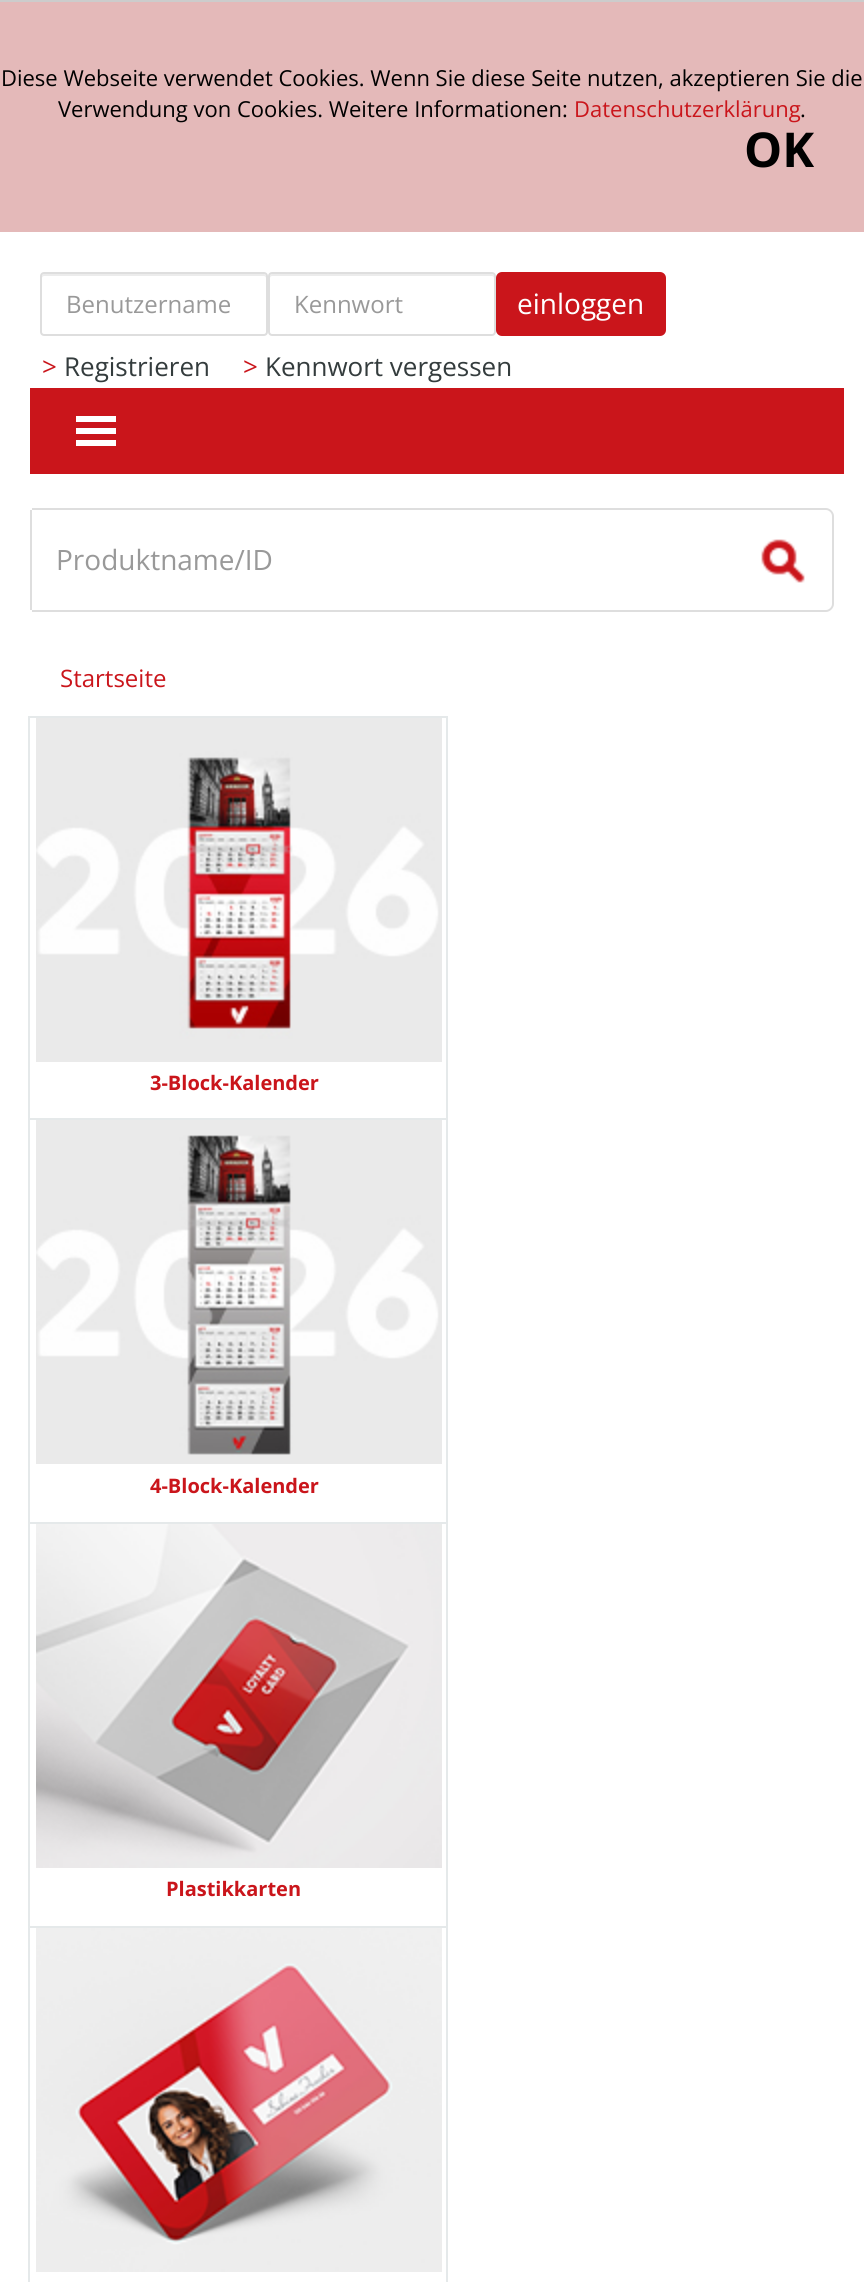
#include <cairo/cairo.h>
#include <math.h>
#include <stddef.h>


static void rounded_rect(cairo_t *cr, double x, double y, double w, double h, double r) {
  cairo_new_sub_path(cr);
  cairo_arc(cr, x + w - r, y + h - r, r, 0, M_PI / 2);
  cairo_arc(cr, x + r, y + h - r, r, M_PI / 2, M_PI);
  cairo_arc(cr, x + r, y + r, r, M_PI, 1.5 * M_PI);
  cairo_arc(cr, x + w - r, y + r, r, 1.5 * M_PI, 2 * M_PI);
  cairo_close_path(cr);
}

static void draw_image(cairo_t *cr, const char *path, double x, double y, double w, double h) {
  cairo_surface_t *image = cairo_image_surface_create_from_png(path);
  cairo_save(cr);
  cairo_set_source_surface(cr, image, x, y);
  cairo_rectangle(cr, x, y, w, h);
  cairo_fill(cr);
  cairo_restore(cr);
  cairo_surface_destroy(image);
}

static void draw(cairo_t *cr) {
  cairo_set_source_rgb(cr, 1, 1, 1);
  cairo_paint(cr);
  cairo_set_source_rgb(cr, 228 / 255.0, 185 / 255.0, 185 / 255.0);
  cairo_rectangle(cr, 0, 2, 864, 230);
  cairo_fill(cr);
  cairo_set_source_rgb(cr, 204 / 255.0, 204 / 255.0, 204 / 255.0);
  cairo_rectangle(cr, 0, 0, 864, 2);
  cairo_fill(cr);
  cairo_set_source_rgb(cr, 236 / 255.0, 236 / 255.0, 236 / 255.0);
  cairo_new_path(cr);
  cairo_move_to(cr, 44, 276);
  cairo_line_to(cr, 264, 276);
  cairo_curve_to(cr, 265, 276, 266, 277, 266, 278);
  cairo_line_to(cr, 266, 276);
  cairo_curve_to(cr, 266, 275, 265, 274, 264, 274);
  cairo_line_to(cr, 44, 274);
  cairo_curve_to(cr, 43, 274, 42, 275, 42, 276);
  cairo_line_to(cr, 42, 278);
  cairo_curve_to(cr, 42, 277, 43, 276, 44, 276);
  cairo_close_path(cr);
  cairo_fill(cr);
  rounded_rect(cr, 41, 273, 226, 62, 3);
  cairo_set_source_rgb(cr, 222 / 255.0, 222 / 255.0, 222 / 255.0);
  cairo_stroke(cr);
  cairo_set_source_rgb(cr, 236 / 255.0, 236 / 255.0, 236 / 255.0);
  cairo_new_path(cr);
  cairo_move_to(cr, 272, 276);
  cairo_line_to(cr, 492, 276);
  cairo_curve_to(cr, 493, 276, 494, 277, 494, 278);
  cairo_line_to(cr, 494, 276);
  cairo_curve_to(cr, 494, 275, 493, 274, 492, 274);
  cairo_line_to(cr, 272, 274);
  cairo_curve_to(cr, 271, 274, 270, 275, 270, 276);
  cairo_line_to(cr, 270, 278);
  cairo_curve_to(cr, 270, 277, 271, 276, 272, 276);
  cairo_close_path(cr);
  cairo_fill(cr);
  rounded_rect(cr, 269, 273, 226, 62, 3);
  cairo_set_source_rgb(cr, 222 / 255.0, 222 / 255.0, 222 / 255.0);
  cairo_stroke(cr);
  cairo_set_source_rgb(cr, 202 / 255.0, 21 / 255.0, 27 / 255.0);
  rounded_rect(cr, 497, 273, 168, 62, 5);
  cairo_fill_preserve(cr);
  cairo_stroke(cr);
  cairo_rectangle(cr, 30, 388, 814, 86);
  cairo_fill(cr);
  cairo_set_source_rgb(cr, 1, 1, 1);
  cairo_rectangle(cr, 76, 416, 40, 6);
  cairo_fill(cr);
  cairo_rectangle(cr, 76, 428, 40, 6);
  cairo_fill(cr);
  cairo_rectangle(cr, 76, 440, 40, 6);
  cairo_fill(cr);
  cairo_set_source_rgb(cr, 222 / 255.0, 222 / 255.0, 222 / 255.0);
  cairo_set_fill_rule(cr, CAIRO_FILL_RULE_EVEN_ODD);
  cairo_new_path(cr);
  cairo_move_to(cr, 734, 508);
  cairo_line_to(cr, 826, 508);
  cairo_curve_to(cr, 830, 508, 834, 512, 834, 516);
  cairo_line_to(cr, 834, 604);
  cairo_curve_to(cr, 834, 608, 830, 612, 826, 612);
  cairo_line_to(cr, 734, 612);
  cairo_close_path(cr);
  cairo_move_to(cr, 734, 510);
  cairo_line_to(cr, 826, 510);
  cairo_curve_to(cr, 829, 510, 832, 513, 832, 516);
  cairo_line_to(cr, 832, 604);
  cairo_curve_to(cr, 832, 607, 829, 610, 826, 610);
  cairo_line_to(cr, 734, 610);
  cairo_close_path(cr);
  cairo_fill(cr);
  cairo_rectangle(cr, 32, 508, 704, 2);
  cairo_fill(cr);
  cairo_rectangle(cr, 32, 610, 704, 2);
  cairo_fill(cr);
  cairo_rectangle(cr, 30, 510, 2, 100);
  cairo_fill(cr);
  draw_image(cr, "images/1.png", 761, 539, 44, 44);
  cairo_rectangle(cr, 29, 717, 418, 402);
  cairo_set_source_rgb(cr, 229 / 255.0, 233 / 255.0, 234 / 255.0);
  cairo_stroke(cr);
  draw_image(cr, "images/2.png", 36, 718, 406, 344);
  cairo_rectangle(cr, 29, 1119, 418, 404);
  cairo_stroke(cr);
  draw_image(cr, "images/3.png", 36, 1120, 406, 344);
  cairo_rectangle(cr, 29, 1523, 418, 404);
  cairo_stroke(cr);
  draw_image(cr, "images/4.png", 36, 1524, 406, 344);
  cairo_rectangle(cr, 29, 1927, 418, 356);
  cairo_stroke(cr);
  draw_image(cr, "images/5.png", 36, 1928, 406, 344);
  cairo_select_font_face(cr, "Open Sans", CAIRO_FONT_SLANT_NORMAL, CAIRO_FONT_WEIGHT_NORMAL);
  cairo_set_font_size(cr, 22);
  cairo_set_source_rgb(cr, 0, 0, 0);
  cairo_move_to(cr, 1, 86);
  cairo_show_text(cr, "Diese Webseite verwendet Cookies. Wenn Sie diese Seite nutzen, akzeptieren Sie die");
  cairo_move_to(cr, 58, 117);
  cairo_show_text(cr, "Verwendung von Cookies. Weitere Informationen:");
  cairo_set_source_rgb(cr, 202 / 255.0, 21 / 255.0, 27 / 255.0);
  cairo_move_to(cr, 574, 117);
  cairo_show_text(cr, "Datenschutzerklärung");
  cairo_set_source_rgb(cr, 0, 0, 0);
  cairo_move_to(cr, 800, 117);
  cairo_show_text(cr, ".");
  cairo_select_font_face(cr, "Open Sans", CAIRO_FONT_SLANT_NORMAL, CAIRO_FONT_WEIGHT_BOLD);
  cairo_set_font_size(cr, 48);
  cairo_move_to(cr, 744, 167);
  cairo_show_text(cr, "OK");
  cairo_select_font_face(cr, "Open Sans", CAIRO_FONT_SLANT_NORMAL, CAIRO_FONT_WEIGHT_NORMAL);
  cairo_set_font_size(cr, 24);
  cairo_set_source_rgb(cr, 153 / 255.0, 153 / 255.0, 153 / 255.0);
  cairo_move_to(cr, 66, 313);
  cairo_show_text(cr, "Benutzername");
  cairo_move_to(cr, 294, 313);
  cairo_show_text(cr, "Kennwort");
  cairo_set_font_size(cr, 28);
  cairo_set_source_rgb(cr, 1, 1, 1);
  cairo_move_to(cr, 517, 314);
  cairo_show_text(cr, "einloggen");
  cairo_set_font_size(cr, 26);
  cairo_set_source_rgb(cr, 202 / 255.0, 21 / 255.0, 27 / 255.0);
  cairo_move_to(cr, 42, 376);
  cairo_show_text(cr, ">");
  cairo_set_source_rgb(cr, 52 / 255.0, 60 / 255.0, 61 / 255.0);
  cairo_move_to(cr, 64, 376);
  cairo_show_text(cr, "Registrieren");
  cairo_set_source_rgb(cr, 202 / 255.0, 21 / 255.0, 27 / 255.0);
  cairo_move_to(cr, 243, 376);
  cairo_show_text(cr, ">");
  cairo_set_source_rgb(cr, 52 / 255.0, 60 / 255.0, 61 / 255.0);
  cairo_move_to(cr, 265, 376);
  cairo_show_text(cr, "Kennwort vergessen");
  cairo_set_font_size(cr, 28);
  cairo_set_source_rgb(cr, 153 / 255.0, 153 / 255.0, 153 / 255.0);
  cairo_move_to(cr, 56, 570);
  cairo_show_text(cr, "Produktname/ID");
  cairo_set_font_size(cr, 24);
  cairo_set_source_rgb(cr, 202 / 255.0, 21 / 255.0, 27 / 255.0);
  cairo_move_to(cr, 60, 687);
  cairo_show_text(cr, "Startseite");
  cairo_select_font_face(cr, "Open Sans", CAIRO_FONT_SLANT_NORMAL, CAIRO_FONT_WEIGHT_BOLD);
  cairo_set_font_size(cr, 20);
  cairo_move_to(cr, 150, 1090);
  cairo_show_text(cr, "3-Block-Kalender");
  cairo_move_to(cr, 150, 1493);
  cairo_show_text(cr, "4-Block-Kalender");
  cairo_move_to(cr, 166, 1896);
  cairo_show_text(cr, "Plastikkarten");
}

int main(void) {
  cairo_surface_t *surface = cairo_image_surface_create(CAIRO_FORMAT_RGB24, 864, 2282);
  cairo_t *cr = cairo_create(surface);
  cairo_font_options_t *options = cairo_font_options_create();
  cairo_font_options_set_hint_metrics(options, CAIRO_HINT_METRICS_OFF);
  cairo_font_options_set_hint_style(options, CAIRO_HINT_STYLE_NONE);
  cairo_set_font_options(cr, options);
  cairo_set_miter_limit(cr, 4);
  draw(cr);
  cairo_surface_write_to_png(surface, "out.png");
  cairo_font_options_destroy(options);
  cairo_destroy(cr);
  cairo_surface_destroy(surface);
  return 0;
}
